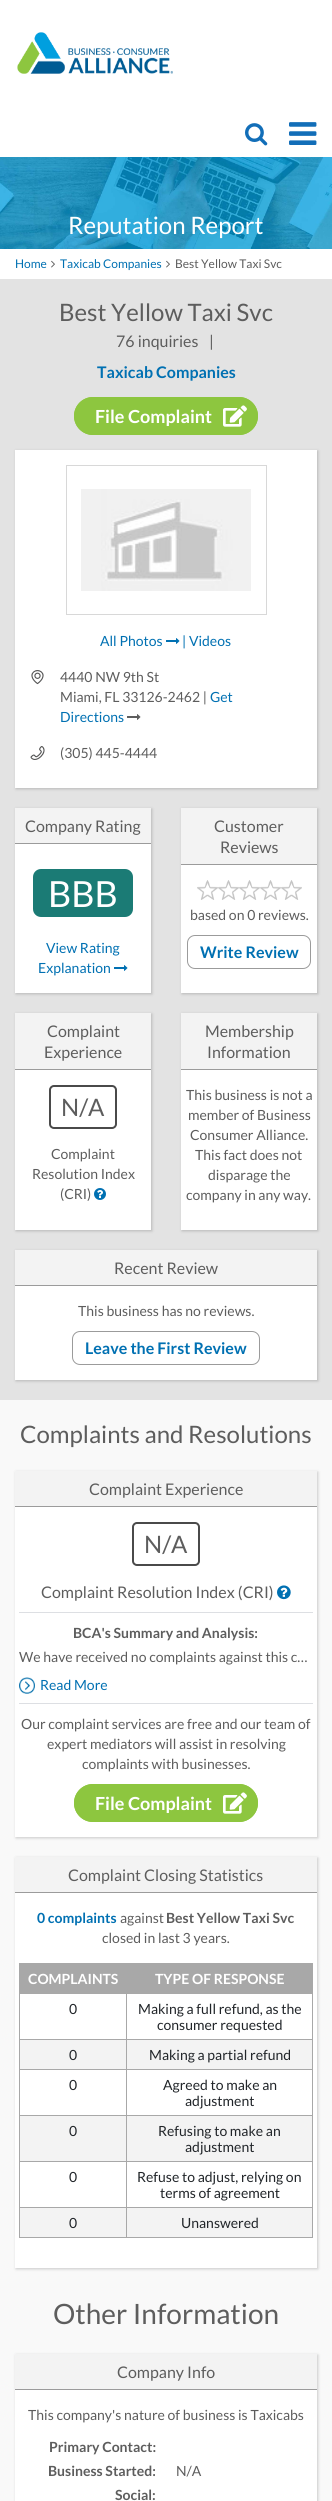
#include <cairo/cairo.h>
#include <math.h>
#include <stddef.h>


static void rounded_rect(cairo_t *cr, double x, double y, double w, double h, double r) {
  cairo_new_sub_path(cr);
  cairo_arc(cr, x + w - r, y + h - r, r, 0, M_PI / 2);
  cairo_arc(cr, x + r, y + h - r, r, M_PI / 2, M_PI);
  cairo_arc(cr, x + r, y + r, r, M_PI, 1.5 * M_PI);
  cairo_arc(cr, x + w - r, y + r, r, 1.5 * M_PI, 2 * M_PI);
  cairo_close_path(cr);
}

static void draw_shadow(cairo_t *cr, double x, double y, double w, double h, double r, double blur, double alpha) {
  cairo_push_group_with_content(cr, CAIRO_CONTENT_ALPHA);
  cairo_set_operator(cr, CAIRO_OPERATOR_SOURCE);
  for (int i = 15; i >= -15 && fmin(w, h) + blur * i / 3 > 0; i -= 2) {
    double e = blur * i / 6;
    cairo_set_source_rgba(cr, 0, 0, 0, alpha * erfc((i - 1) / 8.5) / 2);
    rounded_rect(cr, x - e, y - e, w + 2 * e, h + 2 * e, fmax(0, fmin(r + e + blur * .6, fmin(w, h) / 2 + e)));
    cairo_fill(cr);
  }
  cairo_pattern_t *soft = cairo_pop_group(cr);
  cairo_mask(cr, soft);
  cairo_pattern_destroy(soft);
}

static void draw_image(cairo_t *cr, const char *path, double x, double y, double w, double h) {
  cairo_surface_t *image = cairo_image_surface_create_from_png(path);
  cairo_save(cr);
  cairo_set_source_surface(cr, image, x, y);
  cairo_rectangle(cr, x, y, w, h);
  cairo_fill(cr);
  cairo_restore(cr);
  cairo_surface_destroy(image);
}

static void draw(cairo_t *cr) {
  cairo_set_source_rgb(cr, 1, 1, 1);
  cairo_paint(cr);
  draw_image(cr, "images/1.png", 17, 32, 156, 42);
  draw_image(cr, "images/2.png", 245, 123, 23, 23);
  draw_image(cr, "images/3.png", 289, 122, 28, 23);
  draw_image(cr, "images/4.png", 0, 157, 332, 92);
  draw_image(cr, "images/5.png", 51, 260, 4, 8);
  draw_image(cr, "images/5.png", 166, 260, 4, 8);
  cairo_set_source_rgb(cr, 227 / 255.0, 227 / 255.0, 227 / 255.0);
  cairo_rectangle(cr, 0, 279, 332, 1121);
  cairo_fill(cr);
  cairo_set_source_rgb(cr, 141 / 255.0, 198 / 255.0, 63 / 255.0);
  rounded_rect(cr, 74, 397, 184, 38, 19);
  cairo_fill(cr);
  draw_image(cr, "images/6.png", 223, 405, 24, 22);
  rounded_rect(cr, 74.5, 397.5, 183, 37, 18.5);
  cairo_set_line_width(cr, 1);
  cairo_stroke(cr);
  cairo_set_source_rgb(cr, 0, 0, 0);
  draw_shadow(cr, 16, 451, 302, 338, 0, 1.5, 0.2);
  cairo_set_source_rgb(cr, 1, 1, 1);
  cairo_rectangle(cr, 15, 450, 302, 338);
  cairo_fill(cr);
  cairo_rectangle(cr, 66.5, 465.5, 200, 149);
  cairo_set_source_rgb(cr, 216 / 255.0, 216 / 255.0, 216 / 255.0);
  cairo_stroke(cr);
  draw_image(cr, "images/7.png", 81, 489, 170, 102);
  draw_image(cr, "images/8.png", 166, 638, 14, 6);
  draw_image(cr, "images/9.png", 31, 670, 13, 15);
  draw_image(cr, "images/10.png", 127, 714, 14, 6);
  draw_image(cr, "images/11.png", 30, 746, 15, 14);
  cairo_set_source_rgb(cr, 0, 0, 0);
  draw_shadow(cr, 16, 809, 136, 185, 0, 1.5, 0.2);
  cairo_set_source_rgb(cr, 1, 1, 1);
  cairo_rectangle(cr, 15, 844, 136, 149);
  cairo_fill(cr);
  cairo_set_source_rgb(cr, 243 / 255.0, 243 / 255.0, 243 / 255.0);
  cairo_rectangle(cr, 15, 808, 136, 35);
  cairo_fill(cr);
  cairo_set_source_rgb(cr, 155 / 255.0, 155 / 255.0, 155 / 255.0);
  cairo_rectangle(cr, 15, 843, 136, 1);
  cairo_fill(cr);
  cairo_set_source_rgb(cr, 27 / 255.0, 123 / 255.0, 117 / 255.0);
  rounded_rect(cr, 33, 869, 100, 48, 8);
  cairo_fill(cr);
  draw_image(cr, "images/8.png", 114, 965, 14, 6);
  cairo_set_source_rgb(cr, 0, 0, 0);
  draw_shadow(cr, 182, 809, 136, 185, 0, 1.5, 0.2);
  cairo_set_source_rgb(cr, 1, 1, 1);
  cairo_rectangle(cr, 181, 865, 136, 128);
  cairo_fill(cr);
  cairo_set_source_rgb(cr, 243 / 255.0, 243 / 255.0, 243 / 255.0);
  cairo_rectangle(cr, 181, 808, 136, 56);
  cairo_fill(cr);
  cairo_set_source_rgb(cr, 155 / 255.0, 155 / 255.0, 155 / 255.0);
  cairo_rectangle(cr, 181, 864, 136, 1);
  cairo_fill(cr);
  draw_image(cr, "images/12.png", 197, 880, 21, 20);
  draw_image(cr, "images/12.png", 218, 880, 21, 20);
  draw_image(cr, "images/12.png", 239, 880, 21, 20);
  draw_image(cr, "images/12.png", 260, 880, 21, 20);
  draw_image(cr, "images/12.png", 281, 880, 21, 20);
  rounded_rect(cr, 187.5, 935.5, 123, 33, 7.5);
  cairo_stroke(cr);
  cairo_set_source_rgb(cr, 0, 0, 0);
  draw_shadow(cr, 16, 1014, 136, 217, 0, 1.5, 0.2);
  cairo_set_source_rgb(cr, 1, 1, 1);
  cairo_rectangle(cr, 15, 1070, 136, 160);
  cairo_fill(cr);
  cairo_set_source_rgb(cr, 243 / 255.0, 243 / 255.0, 243 / 255.0);
  cairo_rectangle(cr, 15, 1013, 136, 56);
  cairo_fill(cr);
  cairo_set_source_rgb(cr, 155 / 255.0, 155 / 255.0, 155 / 255.0);
  cairo_rectangle(cr, 15, 1069, 136, 1);
  cairo_fill(cr);
  rounded_rect(cr, 50, 1086, 66, 42, 4);
  cairo_set_source_rgb(cr, 74 / 255.0, 74 / 255.0, 74 / 255.0);
  cairo_set_line_width(cr, 2);
  cairo_stroke(cr);
  draw_image(cr, "images/13.png", 94, 1188, 12, 12);
  cairo_set_source_rgb(cr, 0, 0, 0);
  draw_shadow(cr, 182, 1014, 136, 217, 0, 1.5, 0.2);
  cairo_set_source_rgb(cr, 1, 1, 1);
  cairo_rectangle(cr, 181, 1070, 136, 160);
  cairo_fill(cr);
  cairo_set_source_rgb(cr, 243 / 255.0, 243 / 255.0, 243 / 255.0);
  cairo_rectangle(cr, 181, 1013, 136, 56);
  cairo_fill(cr);
  cairo_set_source_rgb(cr, 155 / 255.0, 155 / 255.0, 155 / 255.0);
  cairo_rectangle(cr, 181, 1069, 136, 1);
  cairo_fill(cr);
  cairo_set_source_rgb(cr, 0, 0, 0);
  draw_shadow(cr, 16, 1251, 302, 130, 0, 1.5, 0.2);
  cairo_set_source_rgb(cr, 1, 1, 1);
  cairo_rectangle(cr, 15, 1286, 302, 94);
  cairo_fill(cr);
  cairo_set_source_rgb(cr, 243 / 255.0, 243 / 255.0, 243 / 255.0);
  cairo_rectangle(cr, 15, 1250, 302, 35);
  cairo_fill(cr);
  cairo_set_source_rgb(cr, 155 / 255.0, 155 / 255.0, 155 / 255.0);
  cairo_rectangle(cr, 15, 1285, 302, 1);
  cairo_fill(cr);
  rounded_rect(cr, 72.5, 1331.5, 187, 33, 7.5);
  cairo_set_line_width(cr, 1);
  cairo_stroke(cr);
  cairo_set_source_rgb(cr, 249 / 255.0, 249 / 255.0, 249 / 255.0);
  cairo_rectangle(cr, 0, 1400, 332, 1101);
  cairo_fill(cr);
  cairo_set_source_rgb(cr, 0, 0, 0);
  draw_shadow(cr, 16, 1472, 302, 366, 0, 1.5, 0.2);
  cairo_set_source_rgb(cr, 1, 1, 1);
  cairo_rectangle(cr, 15, 1507, 302, 330);
  cairo_fill(cr);
  cairo_set_source_rgb(cr, 243 / 255.0, 243 / 255.0, 243 / 255.0);
  cairo_rectangle(cr, 15, 1471, 302, 35);
  cairo_fill(cr);
  cairo_set_source_rgb(cr, 155 / 255.0, 155 / 255.0, 155 / 255.0);
  cairo_rectangle(cr, 15, 1506, 302, 1);
  cairo_fill(cr);
  rounded_rect(cr, 133, 1523, 66, 42, 4);
  cairo_set_source_rgb(cr, 74 / 255.0, 74 / 255.0, 74 / 255.0);
  cairo_set_line_width(cr, 2);
  cairo_stroke(cr);
  draw_image(cr, "images/14.png", 277, 1585, 14, 15);
  cairo_set_source_rgb(cr, 221 / 255.0, 223 / 255.0, 227 / 255.0);
  cairo_rectangle(cr, 19, 1612, 294, 1);
  cairo_fill(cr);
  draw_image(cr, "images/15.png", 19, 1677, 16, 17);
  cairo_rectangle(cr, 19, 1703, 294, 1);
  cairo_fill(cr);
  cairo_set_source_rgb(cr, 141 / 255.0, 198 / 255.0, 63 / 255.0);
  rounded_rect(cr, 74, 1784, 184, 38, 19);
  cairo_fill(cr);
  draw_image(cr, "images/6.png", 223, 1792, 24, 22);
  rounded_rect(cr, 74.5, 1784.5, 183, 37, 18.5);
  cairo_set_line_width(cr, 1);
  cairo_stroke(cr);
  cairo_set_source_rgb(cr, 0, 0, 0);
  draw_shadow(cr, 16, 1858, 302, 411, 0, 1.5, 0.2);
  cairo_set_source_rgb(cr, 1, 1, 1);
  cairo_rectangle(cr, 15, 1893, 302, 375);
  cairo_fill(cr);
  cairo_set_source_rgb(cr, 243 / 255.0, 243 / 255.0, 243 / 255.0);
  cairo_rectangle(cr, 15, 1857, 302, 35);
  cairo_fill(cr);
  cairo_set_source_rgb(cr, 155 / 255.0, 155 / 255.0, 155 / 255.0);
  cairo_rectangle(cr, 15, 1892, 302, 1);
  cairo_fill(cr);
  cairo_set_source_rgb(cr, 168 / 255.0, 168 / 255.0, 168 / 255.0);
  cairo_rectangle(cr, 19, 1963, 294, 1);
  cairo_fill(cr);
  cairo_rectangle(cr, 312, 1963, 1, 275);
  cairo_fill(cr);
  cairo_rectangle(cr, 19, 2237, 294, 1);
  cairo_fill(cr);
  cairo_rectangle(cr, 19, 1963, 1, 275);
  cairo_fill(cr);
  cairo_rectangle(cr, 20, 1964, 292, 29);
  cairo_fill(cr);
  cairo_rectangle(cr, 19, 1993, 294, 1);
  cairo_fill(cr);
  cairo_set_source_rgb(cr, 243 / 255.0, 243 / 255.0, 243 / 255.0);
  cairo_rectangle(cr, 20, 2040, 292, 29);
  cairo_fill(cr);
  cairo_set_source_rgb(cr, 168 / 255.0, 168 / 255.0, 168 / 255.0);
  cairo_rectangle(cr, 19, 2039, 294, 1);
  cairo_fill(cr);
  cairo_rectangle(cr, 19, 2069, 294, 1);
  cairo_fill(cr);
  cairo_set_source_rgb(cr, 243 / 255.0, 243 / 255.0, 243 / 255.0);
  cairo_rectangle(cr, 20, 2116, 292, 45);
  cairo_fill(cr);
  cairo_set_source_rgb(cr, 168 / 255.0, 168 / 255.0, 168 / 255.0);
  cairo_rectangle(cr, 19, 2115, 294, 1);
  cairo_fill(cr);
  cairo_rectangle(cr, 19, 2161, 294, 1);
  cairo_fill(cr);
  cairo_set_source_rgb(cr, 243 / 255.0, 243 / 255.0, 243 / 255.0);
  cairo_rectangle(cr, 20, 2208, 292, 29);
  cairo_fill(cr);
  cairo_set_source_rgb(cr, 168 / 255.0, 168 / 255.0, 168 / 255.0);
  cairo_rectangle(cr, 19, 2207, 294, 1);
  cairo_fill(cr);
  cairo_rectangle(cr, 126, 2207, 1, 31);
  cairo_fill(cr);
  cairo_rectangle(cr, 126, 2161, 1, 47);
  cairo_fill(cr);
  cairo_rectangle(cr, 126, 2115, 1, 47);
  cairo_fill(cr);
  cairo_rectangle(cr, 126, 2069, 1, 47);
  cairo_fill(cr);
  cairo_rectangle(cr, 126, 2039, 1, 31);
  cairo_fill(cr);
  cairo_rectangle(cr, 126, 1993, 1, 47);
  cairo_fill(cr);
  cairo_set_source_rgb(cr, 0, 0, 0);
  draw_shadow(cr, 16, 2355, 302, 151, 0, 1.5, 0.2);
  cairo_set_source_rgb(cr, 1, 1, 1);
  cairo_rectangle(cr, 15, 2390, 302, 111);
  cairo_fill(cr);
  cairo_set_source_rgb(cr, 243 / 255.0, 243 / 255.0, 243 / 255.0);
  cairo_rectangle(cr, 15, 2354, 302, 35);
  cairo_fill(cr);
  cairo_set_source_rgb(cr, 155 / 255.0, 155 / 255.0, 155 / 255.0);
  cairo_rectangle(cr, 15, 2389, 302, 1);
  cairo_fill(cr);
  cairo_select_font_face(cr, "Lato", CAIRO_FONT_SLANT_NORMAL, CAIRO_FONT_WEIGHT_NORMAL);
  cairo_set_font_size(cr, 24);
  cairo_set_source_rgb(cr, 1, 1, 1);
  cairo_move_to(cr, 68, 234);
  cairo_show_text(cr, "Reputation Report");
  cairo_set_font_size(cr, 12);
  cairo_set_source_rgb(cr, 0, 112 / 255.0, 178 / 255.0);
  cairo_move_to(cr, 15, 268);
  cairo_show_text(cr, "Home");
  cairo_move_to(cr, 60, 268);
  cairo_show_text(cr, "Taxicab Companies");
  cairo_set_source_rgb(cr, 93 / 255.0, 93 / 255.0, 93 / 255.0);
  cairo_move_to(cr, 175, 268);
  cairo_show_text(cr, "Best Yellow Taxi Svc");
  cairo_set_font_size(cr, 24);
  cairo_move_to(cr, 59, 321);
  cairo_show_text(cr, "Best Yellow Taxi Svc");
  cairo_set_font_size(cr, 16);
  cairo_move_to(cr, 116, 347);
  cairo_show_text(cr, "76 inquiries");
  cairo_move_to(cr, 209, 347);
  cairo_show_text(cr, "|");
  cairo_select_font_face(cr, "Lato", CAIRO_FONT_SLANT_NORMAL, CAIRO_FONT_WEIGHT_BOLD);
  cairo_set_source_rgb(cr, 0, 112 / 255.0, 178 / 255.0);
  cairo_move_to(cr, 97, 378);
  cairo_show_text(cr, "Taxicab Companies");
  cairo_set_font_size(cr, 18);
  cairo_set_source_rgb(cr, 1, 1, 1);
  cairo_move_to(cr, 95, 423);
  cairo_show_text(cr, "File Complaint");
  cairo_select_font_face(cr, "Lato", CAIRO_FONT_SLANT_NORMAL, CAIRO_FONT_WEIGHT_NORMAL);
  cairo_set_font_size(cr, 14);
  cairo_set_source_rgb(cr, 0, 112 / 255.0, 178 / 255.0);
  cairo_move_to(cr, 100, 646);
  cairo_show_text(cr, "All Photos");
  cairo_move_to(cr, 182, 646);
  cairo_show_text(cr, "| Videos");
  cairo_set_source_rgb(cr, 93 / 255.0, 93 / 255.0, 93 / 255.0);
  cairo_move_to(cr, 60, 682);
  cairo_show_text(cr, "4440 NW 9th St");
  cairo_move_to(cr, 60, 702);
  cairo_show_text(cr, "Miami, FL 33126-2462 |");
  cairo_set_source_rgb(cr, 0, 112 / 255.0, 178 / 255.0);
  cairo_move_to(cr, 210, 702);
  cairo_show_text(cr, "Get");
  cairo_move_to(cr, 60, 722);
  cairo_show_text(cr, "Directions");
  cairo_set_source_rgb(cr, 93 / 255.0, 93 / 255.0, 93 / 255.0);
  cairo_move_to(cr, 60, 758);
  cairo_show_text(cr, "(305) 445-4444");
  cairo_set_font_size(cr, 16);
  cairo_move_to(cr, 25, 832);
  cairo_show_text(cr, "Company Rating");
  cairo_set_font_size(cr, 36);
  cairo_set_source_rgb(cr, 1, 1, 1);
  cairo_move_to(cr, 48, 907);
  cairo_show_text(cr, "BBB");
  cairo_set_font_size(cr, 14);
  cairo_set_source_rgb(cr, 0, 112 / 255.0, 178 / 255.0);
  cairo_move_to(cr, 46, 953);
  cairo_show_text(cr, "View Rating");
  cairo_move_to(cr, 38, 973);
  cairo_show_text(cr, "Explanation");
  cairo_set_font_size(cr, 16);
  cairo_set_source_rgb(cr, 93 / 255.0, 93 / 255.0, 93 / 255.0);
  cairo_move_to(cr, 214, 832);
  cairo_show_text(cr, "Customer");
  cairo_move_to(cr, 220, 853);
  cairo_show_text(cr, "Reviews");
  cairo_set_font_size(cr, 14);
  cairo_move_to(cr, 190, 920);
  cairo_show_text(cr, "based on 0 reviews.");
  cairo_select_font_face(cr, "Lato", CAIRO_FONT_SLANT_NORMAL, CAIRO_FONT_WEIGHT_BOLD);
  cairo_set_font_size(cr, 16);
  cairo_set_source_rgb(cr, 0, 112 / 255.0, 178 / 255.0);
  cairo_move_to(cr, 200, 958);
  cairo_show_text(cr, "Write Review");
  cairo_select_font_face(cr, "Lato", CAIRO_FONT_SLANT_NORMAL, CAIRO_FONT_WEIGHT_NORMAL);
  cairo_set_source_rgb(cr, 93 / 255.0, 93 / 255.0, 93 / 255.0);
  cairo_move_to(cr, 47, 1037);
  cairo_show_text(cr, "Complaint");
  cairo_move_to(cr, 44, 1058);
  cairo_show_text(cr, "Experience");
  cairo_set_font_size(cr, 24);
  cairo_move_to(cr, 61, 1116);
  cairo_show_text(cr, "N/A");
  cairo_set_font_size(cr, 14);
  cairo_move_to(cr, 51, 1159);
  cairo_show_text(cr, "Complaint");
  cairo_move_to(cr, 32, 1179);
  cairo_show_text(cr, "Resolution Index");
  cairo_move_to(cr, 60, 1199);
  cairo_show_text(cr, "(CRI)");
  cairo_set_font_size(cr, 16);
  cairo_move_to(cr, 205, 1037);
  cairo_show_text(cr, "Membership");
  cairo_move_to(cr, 207, 1058);
  cairo_show_text(cr, "Information");
  cairo_set_font_size(cr, 14);
  cairo_move_to(cr, 186, 1100);
  cairo_show_text(cr, "This business is not a");
  cairo_move_to(cr, 188, 1120);
  cairo_show_text(cr, "member of Business");
  cairo_move_to(cr, 190, 1140);
  cairo_show_text(cr, "Consumer Alliance.");
  cairo_move_to(cr, 195, 1160);
  cairo_show_text(cr, "This fact does not");
  cairo_move_to(cr, 208, 1180);
  cairo_show_text(cr, "disparage the");
  cairo_move_to(cr, 186, 1200);
  cairo_show_text(cr, "company in any way.");
  cairo_set_font_size(cr, 16);
  cairo_move_to(cr, 114, 1274);
  cairo_show_text(cr, "Recent Review");
  cairo_set_font_size(cr, 14);
  cairo_move_to(cr, 78, 1316);
  cairo_show_text(cr, "This business has no reviews.");
  cairo_select_font_face(cr, "Lato", CAIRO_FONT_SLANT_NORMAL, CAIRO_FONT_WEIGHT_BOLD);
  cairo_set_font_size(cr, 16);
  cairo_set_source_rgb(cr, 0, 112 / 255.0, 178 / 255.0);
  cairo_move_to(cr, 85, 1354);
  cairo_show_text(cr, "Leave the First Review");
  cairo_select_font_face(cr, "Lato", CAIRO_FONT_SLANT_NORMAL, CAIRO_FONT_WEIGHT_NORMAL);
  cairo_set_font_size(cr, 24);
  cairo_set_source_rgb(cr, 93 / 255.0, 93 / 255.0, 93 / 255.0);
  cairo_move_to(cr, 20, 1443);
  cairo_show_text(cr, "Complaints and Resolutions");
  cairo_set_font_size(cr, 16);
  cairo_move_to(cr, 89, 1495);
  cairo_show_text(cr, "Complaint Experience");
  cairo_set_font_size(cr, 24);
  cairo_move_to(cr, 144, 1553);
  cairo_show_text(cr, "N/A");
  cairo_set_font_size(cr, 16);
  cairo_move_to(cr, 41, 1598);
  cairo_show_text(cr, "Complaint Resolution Index (CRI)");
  cairo_select_font_face(cr, "Lato", CAIRO_FONT_SLANT_NORMAL, CAIRO_FONT_WEIGHT_BOLD);
  cairo_set_font_size(cr, 14);
  cairo_move_to(cr, 73, 1638);
  cairo_show_text(cr, "BCA's Summary and Analysis:");
  cairo_select_font_face(cr, "Lato", CAIRO_FONT_SLANT_NORMAL, CAIRO_FONT_WEIGHT_NORMAL);
  cairo_move_to(cr, 19, 1662);
  cairo_show_text(cr, "We have received no complaints against this c…");
  cairo_set_source_rgb(cr, 0, 112 / 255.0, 178 / 255.0);
  cairo_move_to(cr, 40, 1690);
  cairo_show_text(cr, "Read More");
  cairo_set_source_rgb(cr, 93 / 255.0, 93 / 255.0, 93 / 255.0);
  cairo_move_to(cr, 21, 1729);
  cairo_show_text(cr, "Our complaint services are free and our team of");
  cairo_move_to(cr, 47, 1749);
  cairo_show_text(cr, "expert mediators will assist in resolving");
  cairo_move_to(cr, 82, 1769);
  cairo_show_text(cr, "complaints with businesses.");
  cairo_select_font_face(cr, "Lato", CAIRO_FONT_SLANT_NORMAL, CAIRO_FONT_WEIGHT_BOLD);
  cairo_set_font_size(cr, 18);
  cairo_set_source_rgb(cr, 1, 1, 1);
  cairo_move_to(cr, 95, 1810);
  cairo_show_text(cr, "File Complaint");
  cairo_select_font_face(cr, "Lato", CAIRO_FONT_SLANT_NORMAL, CAIRO_FONT_WEIGHT_NORMAL);
  cairo_set_font_size(cr, 16);
  cairo_set_source_rgb(cr, 93 / 255.0, 93 / 255.0, 93 / 255.0);
  cairo_move_to(cr, 68, 1881);
  cairo_show_text(cr, "Complaint Closing Statistics");
  cairo_select_font_face(cr, "Lato", CAIRO_FONT_SLANT_NORMAL, CAIRO_FONT_WEIGHT_BOLD);
  cairo_set_font_size(cr, 14);
  cairo_set_source_rgb(cr, 0, 112 / 255.0, 178 / 255.0);
  cairo_move_to(cr, 37, 1923);
  cairo_show_text(cr, "0 complaints");
  cairo_select_font_face(cr, "Lato", CAIRO_FONT_SLANT_NORMAL, CAIRO_FONT_WEIGHT_NORMAL);
  cairo_set_source_rgb(cr, 93 / 255.0, 93 / 255.0, 93 / 255.0);
  cairo_move_to(cr, 120, 1923);
  cairo_show_text(cr, "against");
  cairo_select_font_face(cr, "Lato", CAIRO_FONT_SLANT_NORMAL, CAIRO_FONT_WEIGHT_BOLD);
  cairo_move_to(cr, 166, 1923);
  cairo_show_text(cr, "Best Yellow Taxi Svc");
  cairo_select_font_face(cr, "Lato", CAIRO_FONT_SLANT_NORMAL, CAIRO_FONT_WEIGHT_NORMAL);
  cairo_move_to(cr, 102, 1943);
  cairo_show_text(cr, "closed in last 3 years.");
  cairo_select_font_face(cr, "Lato", CAIRO_FONT_SLANT_NORMAL, CAIRO_FONT_WEIGHT_BOLD);
  cairo_set_source_rgb(cr, 1, 1, 1);
  cairo_move_to(cr, 28, 1984);
  cairo_show_text(cr, "COMPLAINTS");
  cairo_move_to(cr, 155, 1984);
  cairo_show_text(cr, "TYPE OF RESPONSE");
  cairo_select_font_face(cr, "Lato", CAIRO_FONT_SLANT_NORMAL, CAIRO_FONT_WEIGHT_NORMAL);
  cairo_set_source_rgb(cr, 33 / 255.0, 37 / 255.0, 41 / 255.0);
  cairo_move_to(cr, 69, 2014);
  cairo_show_text(cr, "0");
  cairo_move_to(cr, 138, 2014);
  cairo_show_text(cr, "Making a full refund, as the");
  cairo_move_to(cr, 157, 2030);
  cairo_show_text(cr, "consumer requested");
  cairo_move_to(cr, 69, 2060);
  cairo_show_text(cr, "0");
  cairo_move_to(cr, 149, 2060);
  cairo_show_text(cr, "Making a partial refund");
  cairo_move_to(cr, 69, 2090);
  cairo_show_text(cr, "0");
  cairo_move_to(cr, 163, 2090);
  cairo_show_text(cr, "Agreed to make an");
  cairo_move_to(cr, 185, 2106);
  cairo_show_text(cr, "adjustment");
  cairo_move_to(cr, 69, 2136);
  cairo_show_text(cr, "0");
  cairo_move_to(cr, 158, 2136);
  cairo_show_text(cr, "Refusing to make an");
  cairo_move_to(cr, 185, 2152);
  cairo_show_text(cr, "adjustment");
  cairo_move_to(cr, 69, 2182);
  cairo_show_text(cr, "0");
  cairo_move_to(cr, 137, 2182);
  cairo_show_text(cr, "Refuse to adjust, relying on");
  cairo_move_to(cr, 160, 2198);
  cairo_show_text(cr, "terms of agreement");
  cairo_move_to(cr, 69, 2228);
  cairo_show_text(cr, "0");
  cairo_move_to(cr, 181, 2228);
  cairo_show_text(cr, "Unanswered");
  cairo_set_font_size(cr, 28);
  cairo_set_source_rgb(cr, 93 / 255.0, 93 / 255.0, 93 / 255.0);
  cairo_move_to(cr, 53, 2324);
  cairo_show_text(cr, "Other Information");
  cairo_set_font_size(cr, 16);
  cairo_move_to(cr, 117, 2378);
  cairo_show_text(cr, "Company Info");
  cairo_set_font_size(cr, 14);
  cairo_move_to(cr, 28, 2420);
  cairo_show_text(cr, "This company's nature of business is Taxicabs");
  cairo_select_font_face(cr, "Lato", CAIRO_FONT_SLANT_NORMAL, CAIRO_FONT_WEIGHT_BOLD);
  cairo_move_to(cr, 49, 2452);
  cairo_show_text(cr, "Primary Contact:");
  cairo_move_to(cr, 48, 2476);
  cairo_show_text(cr, "Business Started:");
  cairo_select_font_face(cr, "Lato", CAIRO_FONT_SLANT_NORMAL, CAIRO_FONT_WEIGHT_NORMAL);
  cairo_move_to(cr, 176, 2476);
  cairo_show_text(cr, "N/A");
  cairo_select_font_face(cr, "Lato", CAIRO_FONT_SLANT_NORMAL, CAIRO_FONT_WEIGHT_BOLD);
  cairo_move_to(cr, 115, 2500);
  cairo_show_text(cr, "Social:");
}

int main(void) {
  cairo_surface_t *surface = cairo_image_surface_create(CAIRO_FORMAT_RGB24, 332, 2501);
  cairo_t *cr = cairo_create(surface);
  cairo_font_options_t *options = cairo_font_options_create();
  cairo_font_options_set_hint_metrics(options, CAIRO_HINT_METRICS_OFF);
  cairo_font_options_set_hint_style(options, CAIRO_HINT_STYLE_NONE);
  cairo_set_font_options(cr, options);
  cairo_set_miter_limit(cr, 4);
  draw(cr);
  cairo_surface_write_to_png(surface, "out.png");
  cairo_font_options_destroy(options);
  cairo_destroy(cr);
  cairo_surface_destroy(surface);
  return 0;
}
